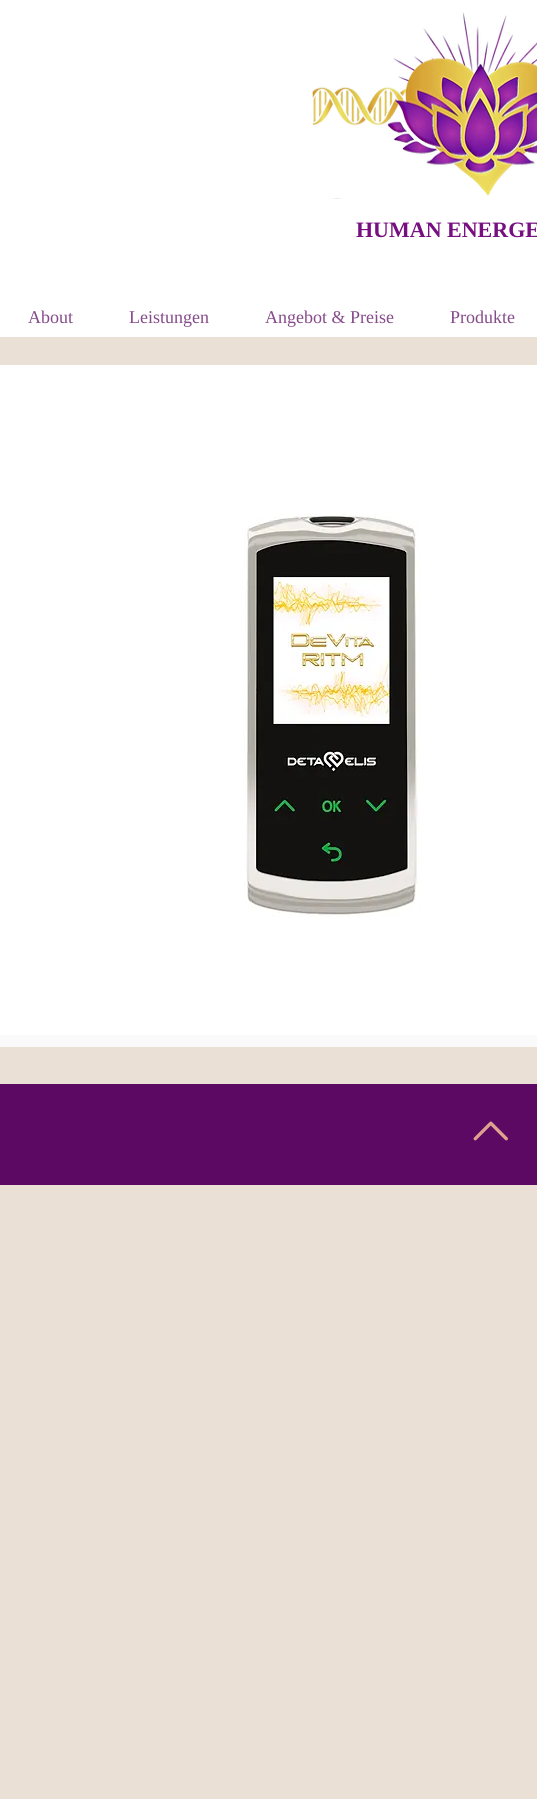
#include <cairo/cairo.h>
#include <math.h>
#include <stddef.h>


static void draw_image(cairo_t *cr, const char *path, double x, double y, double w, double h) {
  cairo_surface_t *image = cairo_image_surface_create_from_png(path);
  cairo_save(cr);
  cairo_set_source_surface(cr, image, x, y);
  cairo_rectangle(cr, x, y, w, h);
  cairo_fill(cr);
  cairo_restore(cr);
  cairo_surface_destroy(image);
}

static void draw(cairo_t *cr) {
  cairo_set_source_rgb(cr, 235 / 255.0, 224 / 255.0, 213 / 255.0);
  cairo_paint(cr);
  cairo_set_source_rgb(cr, 1, 1, 1);
  cairo_rectangle(cr, 0, 0, 537, 337);
  cairo_fill(cr);
  draw_image(cr, "images/1.png", 312, 12, 225, 187);
  cairo_rectangle(cr, 0, 365, 537, 670);
  cairo_fill(cr);
  draw_image(cr, "images/2.png", 244, 513, 176, 404);
  cairo_set_source_rgb(cr, 250 / 255.0, 250 / 255.0, 250 / 255.0);
  cairo_rectangle(cr, 0, 1035, 537, 12);
  cairo_fill(cr);
  cairo_set_source_rgb(cr, 92 / 255.0, 9 / 255.0, 99 / 255.0);
  cairo_rectangle(cr, 0, 1084, 537, 101);
  cairo_fill(cr);
  draw_image(cr, "images/3.png", 473, 1121, 35, 20);
  cairo_select_font_face(cr, "Liberation Serif", CAIRO_FONT_SLANT_NORMAL, CAIRO_FONT_WEIGHT_BOLD);
  cairo_set_font_size(cr, 22);
  cairo_set_source_rgb(cr, 119 / 255.0, 15 / 255.0, 128 / 255.0);
  cairo_move_to(cr, 356, 237);
  cairo_show_text(cr, "HUMAN ENERGE");
  cairo_select_font_face(cr, "Liberation Serif", CAIRO_FONT_SLANT_NORMAL, CAIRO_FONT_WEIGHT_NORMAL);
  cairo_set_font_size(cr, 18);
  cairo_set_source_rgb(cr, 133 / 255.0, 75 / 255.0, 138 / 255.0);
  cairo_move_to(cr, 28, 323);
  cairo_show_text(cr, "About");
  cairo_move_to(cr, 129, 323);
  cairo_show_text(cr, "Leistungen");
  cairo_move_to(cr, 265, 323);
  cairo_show_text(cr, "Angebot & Preise");
  cairo_move_to(cr, 450, 323);
  cairo_show_text(cr, "Produkte");
}

int main(void) {
  cairo_surface_t *surface = cairo_image_surface_create(CAIRO_FORMAT_RGB24, 537, 1799);
  cairo_t *cr = cairo_create(surface);
  cairo_font_options_t *options = cairo_font_options_create();
  cairo_font_options_set_hint_metrics(options, CAIRO_HINT_METRICS_OFF);
  cairo_font_options_set_hint_style(options, CAIRO_HINT_STYLE_NONE);
  cairo_set_font_options(cr, options);
  cairo_set_miter_limit(cr, 4);
  draw(cr);
  cairo_surface_write_to_png(surface, "out.png");
  cairo_font_options_destroy(options);
  cairo_destroy(cr);
  cairo_surface_destroy(surface);
  return 0;
}
